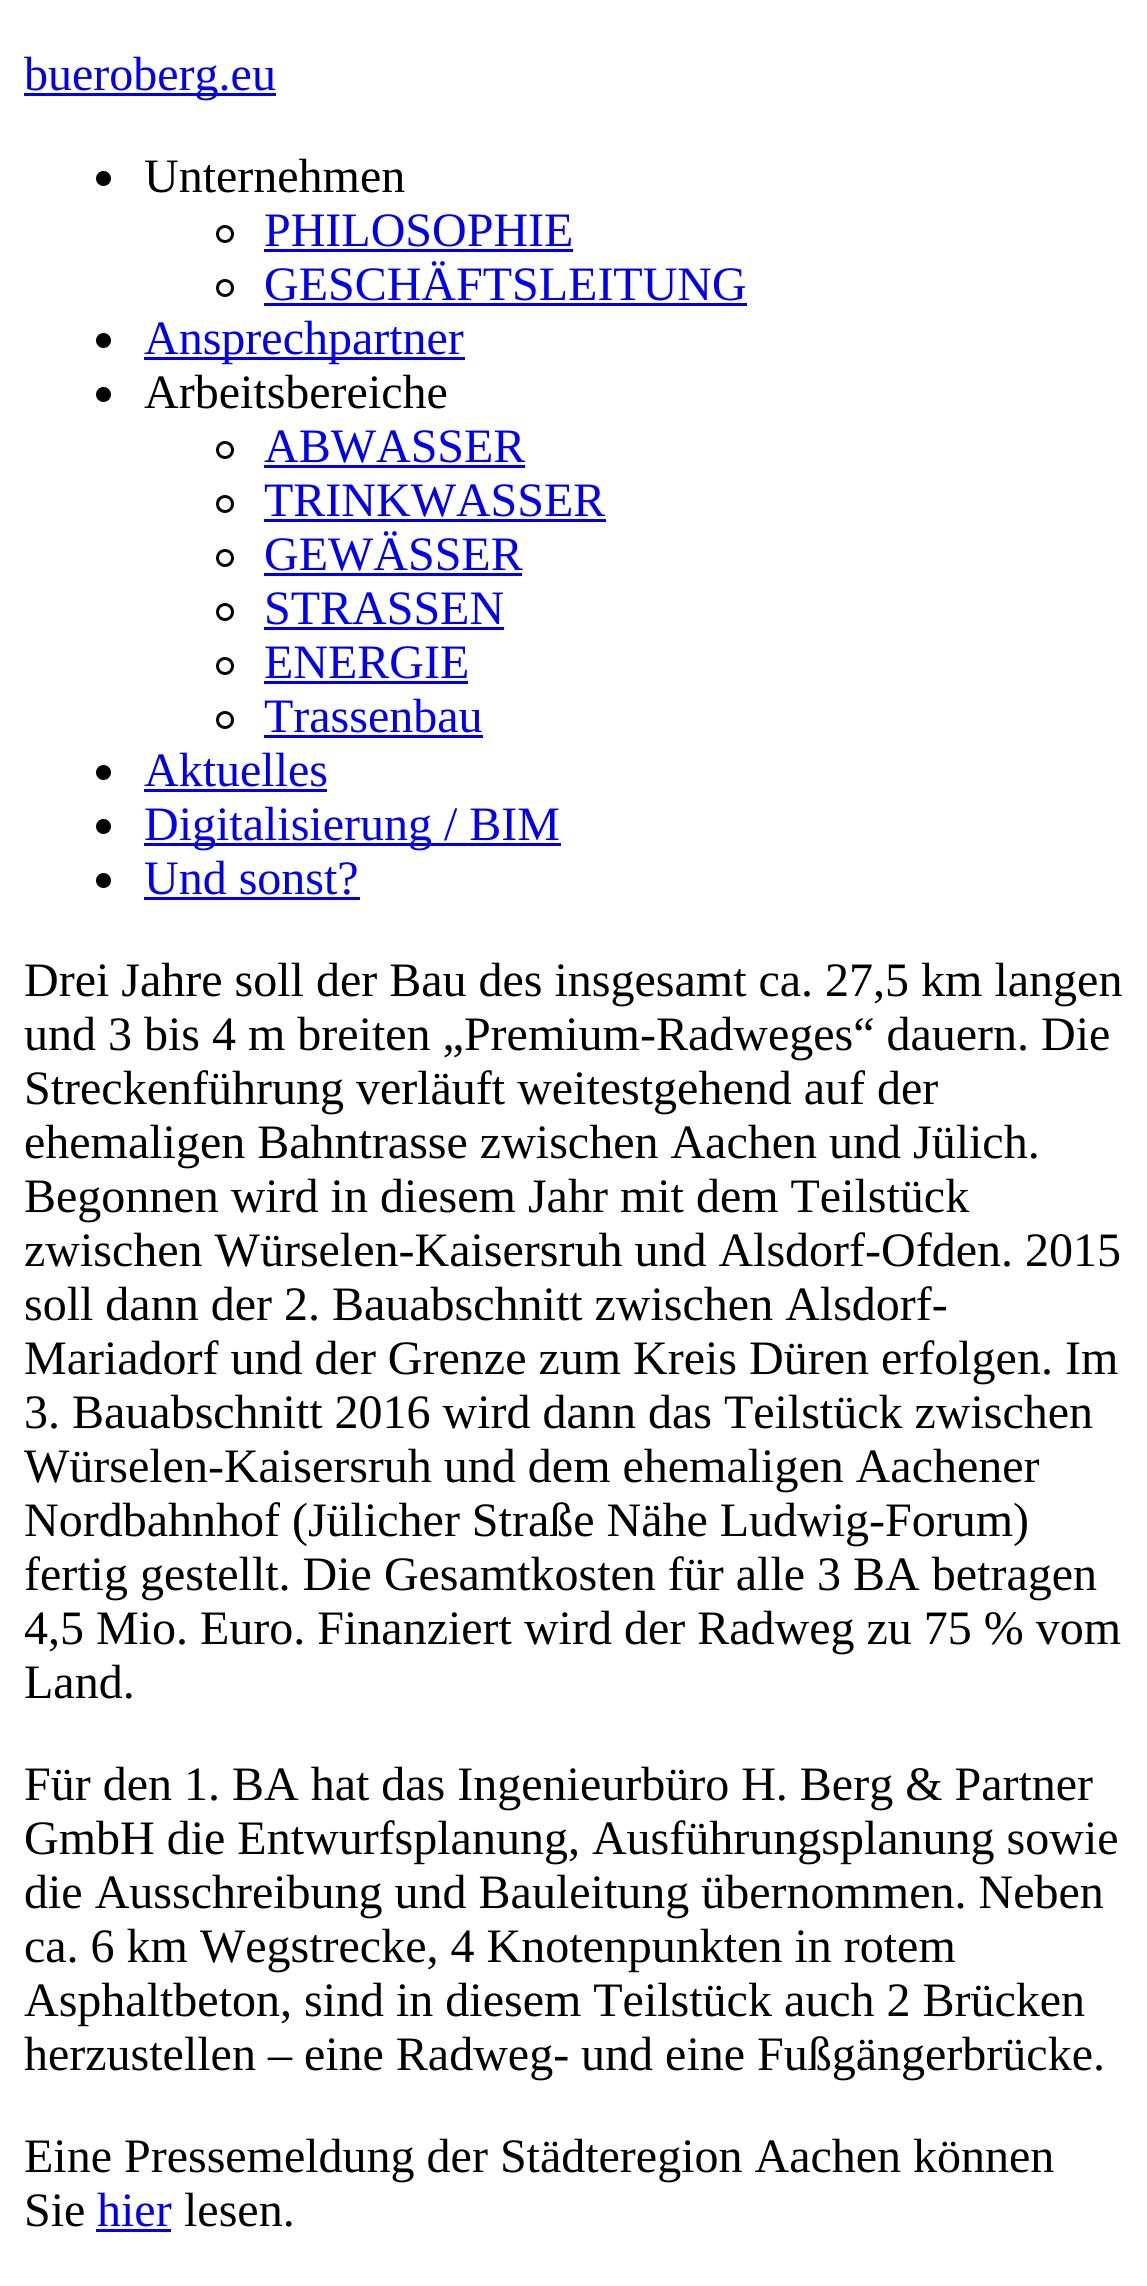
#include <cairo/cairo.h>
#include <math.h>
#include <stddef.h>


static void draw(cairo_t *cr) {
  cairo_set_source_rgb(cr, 1, 1, 1);
  cairo_paint(cr);
  cairo_set_source_rgb(cr, 0, 0, 238 / 255.0);
  cairo_rectangle(cr, 24, 93, 252, 3);
  cairo_fill(cr);
  cairo_set_source_rgb(cr, 0, 0, 0);
  cairo_arc(cr, 103.5, 178.5, 7.5, 0, 2 * M_PI);
  cairo_fill(cr);
  cairo_arc(cr, 225, 234, 7.5, 0, 2 * M_PI);
  cairo_set_line_width(cr, 3);
  cairo_stroke(cr);
  cairo_set_source_rgb(cr, 0, 0, 238 / 255.0);
  cairo_rectangle(cr, 264, 249, 309, 3);
  cairo_fill(cr);
  cairo_arc(cr, 225, 288, 7.5, 0, 2 * M_PI);
  cairo_set_source_rgb(cr, 0, 0, 0);
  cairo_stroke(cr);
  cairo_set_source_rgb(cr, 0, 0, 238 / 255.0);
  cairo_rectangle(cr, 264, 303, 483, 3);
  cairo_fill(cr);
  cairo_set_source_rgb(cr, 0, 0, 0);
  cairo_arc(cr, 103.5, 340.5, 7.5, 0, 2 * M_PI);
  cairo_fill(cr);
  cairo_set_source_rgb(cr, 0, 0, 238 / 255.0);
  cairo_rectangle(cr, 144, 357, 321, 3);
  cairo_fill(cr);
  cairo_set_source_rgb(cr, 0, 0, 0);
  cairo_arc(cr, 103.5, 394.5, 7.5, 0, 2 * M_PI);
  cairo_fill(cr);
  cairo_arc(cr, 225, 450, 7.5, 0, 2 * M_PI);
  cairo_stroke(cr);
  cairo_set_source_rgb(cr, 0, 0, 238 / 255.0);
  cairo_rectangle(cr, 264, 465, 261, 3);
  cairo_fill(cr);
  cairo_arc(cr, 225, 504, 7.5, 0, 2 * M_PI);
  cairo_set_source_rgb(cr, 0, 0, 0);
  cairo_stroke(cr);
  cairo_set_source_rgb(cr, 0, 0, 238 / 255.0);
  cairo_rectangle(cr, 264, 519, 342, 3);
  cairo_fill(cr);
  cairo_arc(cr, 225, 558, 7.5, 0, 2 * M_PI);
  cairo_set_source_rgb(cr, 0, 0, 0);
  cairo_stroke(cr);
  cairo_set_source_rgb(cr, 0, 0, 238 / 255.0);
  cairo_rectangle(cr, 264, 573, 258, 3);
  cairo_fill(cr);
  cairo_arc(cr, 225, 612, 7.5, 0, 2 * M_PI);
  cairo_set_source_rgb(cr, 0, 0, 0);
  cairo_stroke(cr);
  cairo_set_source_rgb(cr, 0, 0, 238 / 255.0);
  cairo_rectangle(cr, 264, 627, 240, 3);
  cairo_fill(cr);
  cairo_arc(cr, 225, 666, 7.5, 0, 2 * M_PI);
  cairo_set_source_rgb(cr, 0, 0, 0);
  cairo_stroke(cr);
  cairo_set_source_rgb(cr, 0, 0, 238 / 255.0);
  cairo_rectangle(cr, 264, 681, 204, 3);
  cairo_fill(cr);
  cairo_arc(cr, 225, 720, 7.5, 0, 2 * M_PI);
  cairo_set_source_rgb(cr, 0, 0, 0);
  cairo_stroke(cr);
  cairo_set_source_rgb(cr, 0, 0, 238 / 255.0);
  cairo_rectangle(cr, 264, 735, 219, 3);
  cairo_fill(cr);
  cairo_set_source_rgb(cr, 0, 0, 0);
  cairo_arc(cr, 103.5, 772.5, 7.5, 0, 2 * M_PI);
  cairo_fill(cr);
  cairo_set_source_rgb(cr, 0, 0, 238 / 255.0);
  cairo_rectangle(cr, 144, 789, 183, 3);
  cairo_fill(cr);
  cairo_set_source_rgb(cr, 0, 0, 0);
  cairo_arc(cr, 103.5, 826.5, 7.5, 0, 2 * M_PI);
  cairo_fill(cr);
  cairo_set_source_rgb(cr, 0, 0, 238 / 255.0);
  cairo_rectangle(cr, 144, 843, 417, 3);
  cairo_fill(cr);
  cairo_set_source_rgb(cr, 0, 0, 0);
  cairo_arc(cr, 103.5, 880.5, 7.5, 0, 2 * M_PI);
  cairo_fill(cr);
  cairo_set_source_rgb(cr, 0, 0, 238 / 255.0);
  cairo_rectangle(cr, 144, 897, 216, 3);
  cairo_fill(cr);
  cairo_rectangle(cr, 96, 2229, 75, 3);
  cairo_fill(cr);
  cairo_select_font_face(cr, "Liberation Serif", CAIRO_FONT_SLANT_NORMAL, CAIRO_FONT_WEIGHT_NORMAL);
  cairo_set_font_size(cr, 48);
  cairo_move_to(cr, 24, 90);
  cairo_show_text(cr, "bueroberg.eu");
  cairo_set_source_rgb(cr, 0, 0, 0);
  cairo_move_to(cr, 144, 192);
  cairo_show_text(cr, "Unternehmen");
  cairo_set_source_rgb(cr, 0, 0, 238 / 255.0);
  cairo_move_to(cr, 264, 246);
  cairo_show_text(cr, "PHILOSOPHIE");
  cairo_move_to(cr, 264, 300);
  cairo_show_text(cr, "GESCHÄFTSLEITUNG");
  cairo_move_to(cr, 144, 354);
  cairo_show_text(cr, "Ansprechpartner");
  cairo_set_source_rgb(cr, 0, 0, 0);
  cairo_move_to(cr, 144, 408);
  cairo_show_text(cr, "Arbeitsbereiche");
  cairo_set_source_rgb(cr, 0, 0, 238 / 255.0);
  cairo_move_to(cr, 264, 462);
  cairo_show_text(cr, "ABWASSER");
  cairo_move_to(cr, 264, 516);
  cairo_show_text(cr, "TRINKWASSER");
  cairo_move_to(cr, 264, 570);
  cairo_show_text(cr, "GEWÄSSER");
  cairo_move_to(cr, 264, 624);
  cairo_show_text(cr, "STRASSEN");
  cairo_move_to(cr, 264, 678);
  cairo_show_text(cr, "ENERGIE");
  cairo_move_to(cr, 264, 732);
  cairo_show_text(cr, "Trassenbau");
  cairo_move_to(cr, 144, 786);
  cairo_show_text(cr, "Aktuelles");
  cairo_move_to(cr, 144, 840);
  cairo_show_text(cr, "Digitalisierung / BIM");
  cairo_move_to(cr, 144, 894);
  cairo_show_text(cr, "Und sonst?");
  cairo_set_source_rgb(cr, 0, 0, 0);
  cairo_move_to(cr, 24, 996);
  cairo_show_text(cr, "Drei Jahre soll der Bau des insgesamt ca. 27,5 km langen");
  cairo_move_to(cr, 24, 1050);
  cairo_show_text(cr, "und 3 bis 4 m breiten „Premium-Radweges“ dauern. Die");
  cairo_move_to(cr, 24, 1104);
  cairo_show_text(cr, "Streckenführung verläuft weitestgehend auf der");
  cairo_move_to(cr, 24, 1158);
  cairo_show_text(cr, "ehemaligen Bahntrasse zwischen Aachen und Jülich.");
  cairo_move_to(cr, 24, 1212);
  cairo_show_text(cr, "Begonnen wird in diesem Jahr mit dem Teilstück");
  cairo_move_to(cr, 24, 1266);
  cairo_show_text(cr, "zwischen Würselen-Kaisersruh und Alsdorf-Ofden. 2015");
  cairo_move_to(cr, 24, 1320);
  cairo_show_text(cr, "soll dann der 2. Bauabschnitt zwischen Alsdorf-");
  cairo_move_to(cr, 24, 1374);
  cairo_show_text(cr, "Mariadorf und der Grenze zum Kreis Düren erfolgen. Im");
  cairo_move_to(cr, 24, 1428);
  cairo_show_text(cr, "3. Bauabschnitt 2016 wird dann das Teilstück zwischen");
  cairo_move_to(cr, 24, 1482);
  cairo_show_text(cr, "Würselen-Kaisersruh und dem ehemaligen Aachener");
  cairo_move_to(cr, 24, 1536);
  cairo_show_text(cr, "Nordbahnhof (Jülicher Straße Nähe Ludwig-Forum)");
  cairo_move_to(cr, 24, 1590);
  cairo_show_text(cr, "fertig gestellt. Die Gesamtkosten für alle 3 BA betragen");
  cairo_move_to(cr, 24, 1644);
  cairo_show_text(cr, "4,5 Mio. Euro. Finanziert wird der Radweg zu 75 % vom");
  cairo_move_to(cr, 24, 1698);
  cairo_show_text(cr, "Land.");
  cairo_move_to(cr, 24, 1800);
  cairo_show_text(cr, "Für den 1. BA hat das Ingenieurbüro H. Berg & Partner");
  cairo_move_to(cr, 24, 1854);
  cairo_show_text(cr, "GmbH die Entwurfsplanung, Ausführungsplanung sowie");
  cairo_move_to(cr, 24, 1908);
  cairo_show_text(cr, "die Ausschreibung und Bauleitung übernommen. Neben");
  cairo_move_to(cr, 24, 1962);
  cairo_show_text(cr, "ca. 6 km Wegstrecke, 4 Knotenpunkten in rotem");
  cairo_move_to(cr, 24, 2016);
  cairo_show_text(cr, "Asphaltbeton, sind in diesem Teilstück auch 2 Brücken");
  cairo_move_to(cr, 24, 2070);
  cairo_show_text(cr, "herzustellen – eine Radweg- und eine Fußgängerbrücke.");
  cairo_move_to(cr, 24, 2172);
  cairo_show_text(cr, "Eine Pressemeldung der Städteregion Aachen können");
  cairo_move_to(cr, 24, 2226);
  cairo_show_text(cr, "Sie");
  cairo_set_source_rgb(cr, 0, 0, 238 / 255.0);
  cairo_move_to(cr, 97, 2226);
  cairo_show_text(cr, "hier");
  cairo_set_source_rgb(cr, 0, 0, 0);
  cairo_move_to(cr, 184, 2226);
  cairo_show_text(cr, "lesen.");
}

int main(void) {
  cairo_surface_t *surface = cairo_image_surface_create(CAIRO_FORMAT_RGB24, 1147, 2286);
  cairo_t *cr = cairo_create(surface);
  cairo_font_options_t *options = cairo_font_options_create();
  cairo_font_options_set_hint_metrics(options, CAIRO_HINT_METRICS_OFF);
  cairo_font_options_set_hint_style(options, CAIRO_HINT_STYLE_NONE);
  cairo_set_font_options(cr, options);
  cairo_set_miter_limit(cr, 4);
  draw(cr);
  cairo_surface_write_to_png(surface, "out.png");
  cairo_font_options_destroy(options);
  cairo_destroy(cr);
  cairo_surface_destroy(surface);
  return 0;
}
